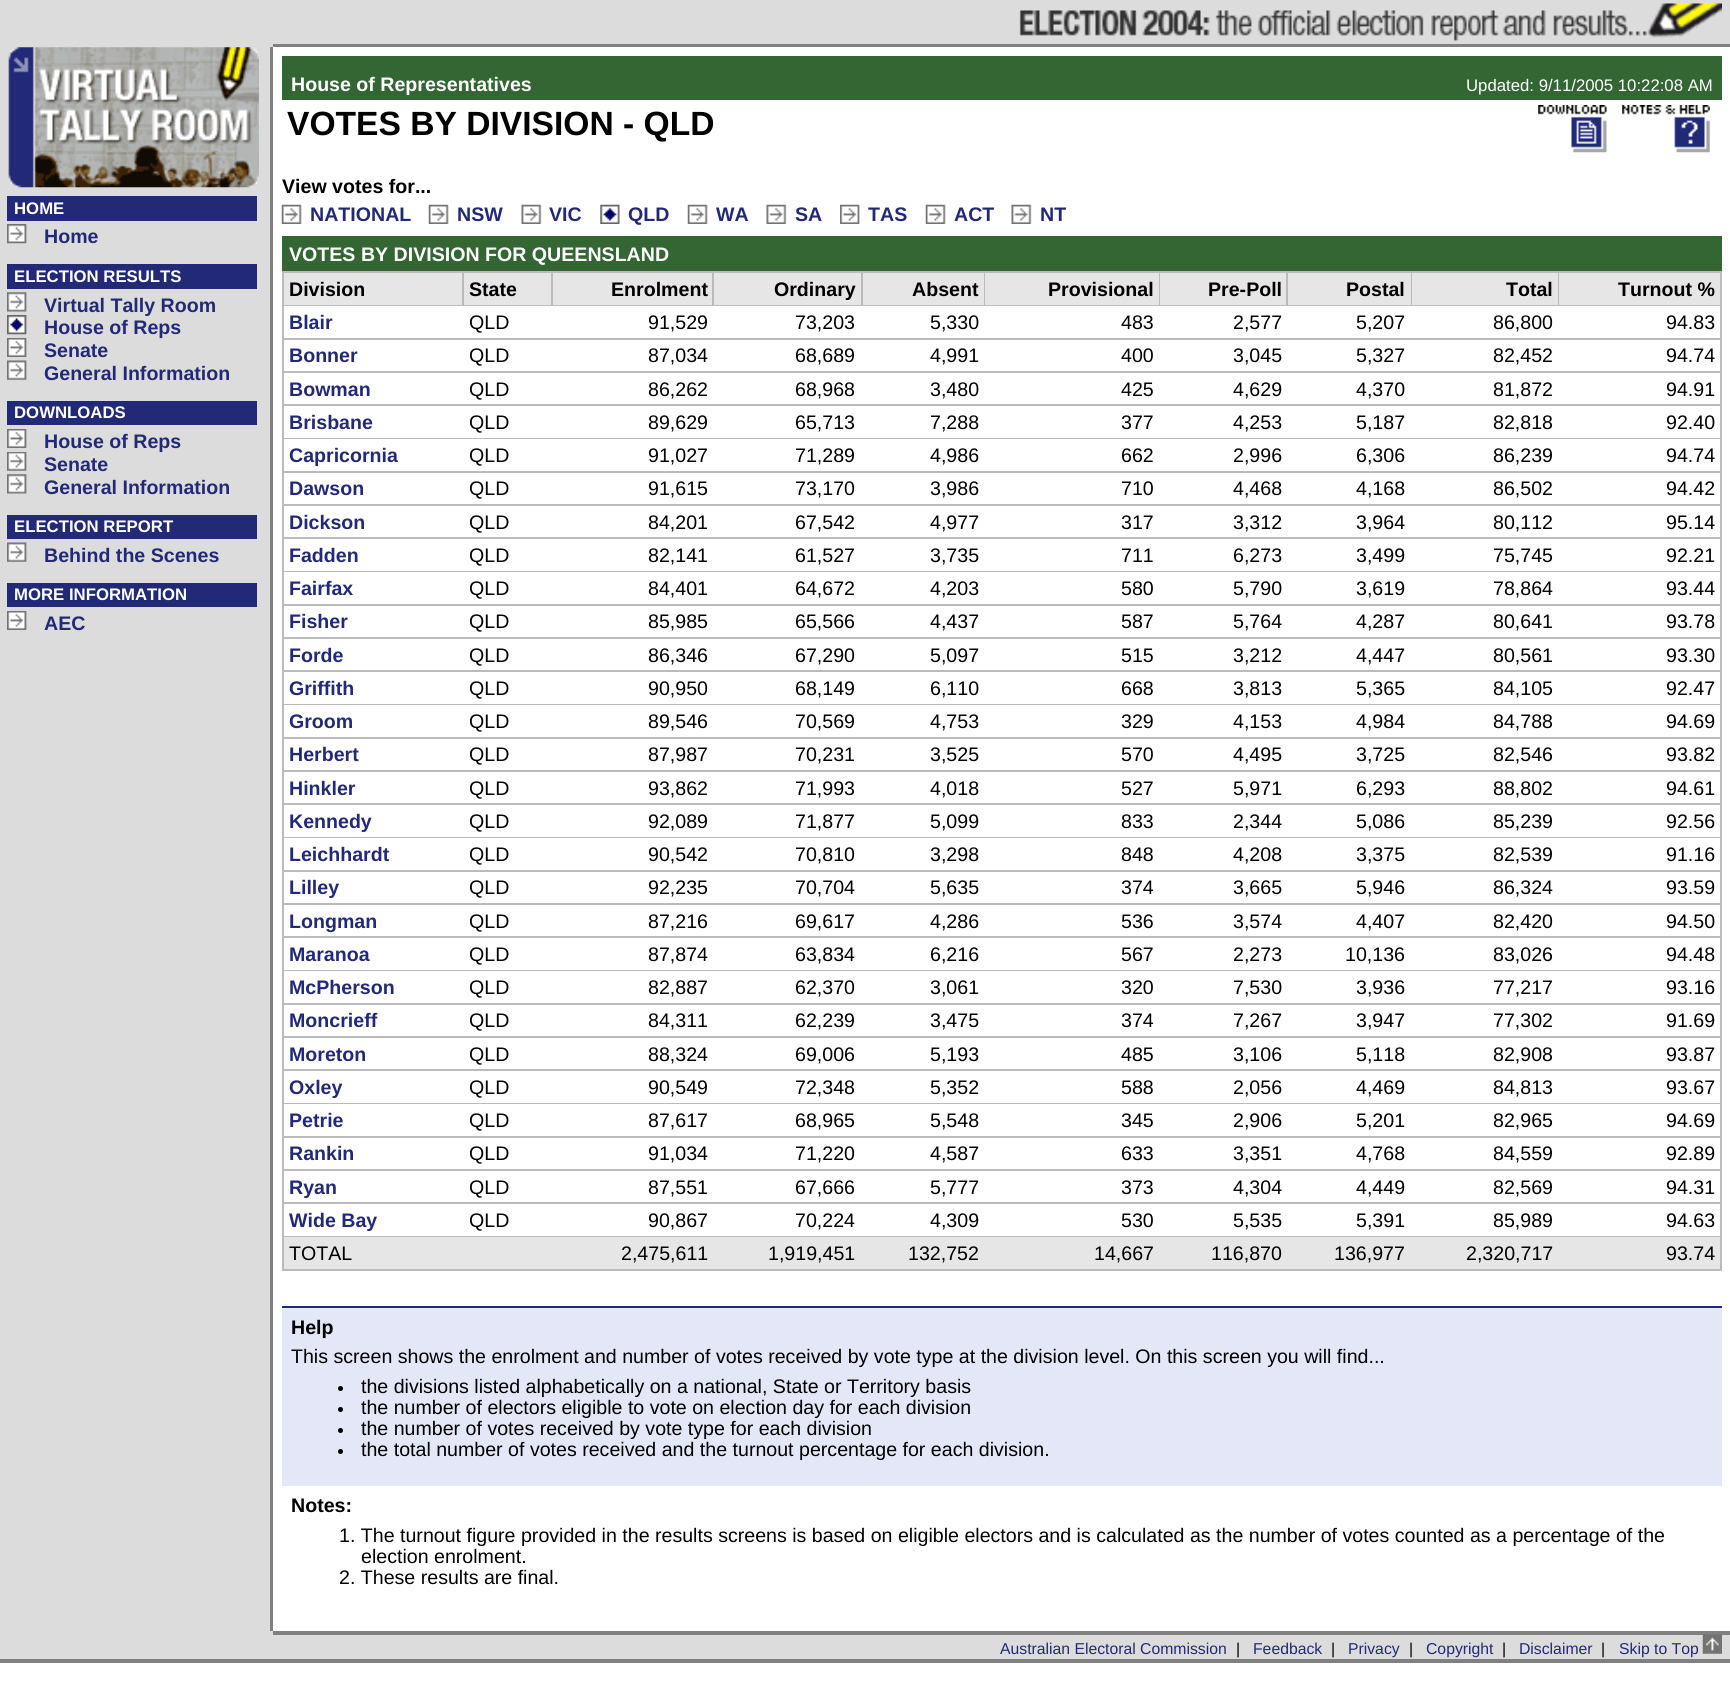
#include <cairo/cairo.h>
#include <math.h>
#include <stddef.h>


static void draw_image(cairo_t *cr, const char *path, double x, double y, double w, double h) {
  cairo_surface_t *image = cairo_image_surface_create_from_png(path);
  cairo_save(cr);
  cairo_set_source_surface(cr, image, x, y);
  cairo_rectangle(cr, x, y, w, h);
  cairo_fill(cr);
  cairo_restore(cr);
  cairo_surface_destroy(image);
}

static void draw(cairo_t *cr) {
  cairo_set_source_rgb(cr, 1, 1, 1);
  cairo_paint(cr);
  cairo_set_source_rgb(cr, 220 / 255.0, 220 / 255.0, 220 / 255.0);
  cairo_rectangle(cr, 0, 0, 273, 47);
  cairo_fill(cr);
  cairo_rectangle(cr, 273, 0, 1457, 44);
  cairo_fill(cr);
  cairo_set_source_rgb(cr, 128 / 255.0, 128 / 255.0, 128 / 255.0);
  cairo_rectangle(cr, 273, 44, 1457, 3);
  cairo_fill(cr);
  draw_image(cr, "images/1.png", 1019, 3, 703, 38);
  cairo_set_source_rgb(cr, 220 / 255.0, 220 / 255.0, 220 / 255.0);
  cairo_rectangle(cr, 0, 47, 270, 1584);
  cairo_fill(cr);
  cairo_set_source_rgb(cr, 128 / 255.0, 128 / 255.0, 128 / 255.0);
  cairo_rectangle(cr, 270, 47, 3, 1584);
  cairo_fill(cr);
  draw_image(cr, "images/2.png", 8, 47, 251, 141);
  cairo_set_source_rgb(cr, 34 / 255.0, 42 / 255.0, 119 / 255.0);
  cairo_rectangle(cr, 7, 196, 250, 25);
  cairo_fill(cr);
  draw_image(cr, "images/3.png", 7, 224, 20, 20);
  cairo_rectangle(cr, 7, 264, 250, 25);
  cairo_fill(cr);
  draw_image(cr, "images/4.png", 7, 292, 20, 20);
  draw_image(cr, "images/5.png", 7, 315, 20, 20);
  draw_image(cr, "images/6.png", 7, 338, 20, 19);
  draw_image(cr, "images/7.png", 7, 360, 20, 20);
  cairo_rectangle(cr, 7, 401, 250, 24);
  cairo_fill(cr);
  draw_image(cr, "images/6.png", 7, 429, 20, 19);
  draw_image(cr, "images/8.png", 7, 452, 20, 19);
  draw_image(cr, "images/4.png", 7, 474, 20, 20);
  cairo_rectangle(cr, 7, 515, 250, 24);
  cairo_fill(cr);
  draw_image(cr, "images/7.png", 7, 542, 20, 20);
  cairo_rectangle(cr, 7, 583, 250, 24);
  cairo_fill(cr);
  draw_image(cr, "images/6.png", 7, 611, 20, 19);
  cairo_set_source_rgb(cr, 51 / 255.0, 102 / 255.0, 51 / 255.0);
  cairo_rectangle(cr, 282, 56, 1440, 44);
  cairo_fill(cr);
  draw_image(cr, "images/9.png", 1538, 105, 69, 48);
  draw_image(cr, "images/10.png", 1622, 105, 88, 48);
  draw_image(cr, "images/11.png", 281, 204, 21, 20);
  draw_image(cr, "images/11.png", 428, 204, 21, 20);
  draw_image(cr, "images/12.png", 521, 204, 21, 20);
  draw_image(cr, "images/13.png", 600, 204, 20, 20);
  draw_image(cr, "images/11.png", 687, 204, 21, 20);
  draw_image(cr, "images/12.png", 766, 204, 21, 20);
  draw_image(cr, "images/14.png", 840, 204, 20, 20);
  draw_image(cr, "images/11.png", 925, 204, 21, 20);
  draw_image(cr, "images/12.png", 1011, 204, 21, 20);
  cairo_set_source_rgb(cr, 187 / 255.0, 187 / 255.0, 187 / 255.0);
  cairo_rectangle(cr, 282, 271, 1440, 1000);
  cairo_fill(cr);
  cairo_set_source_rgb(cr, 51 / 255.0, 102 / 255.0, 51 / 255.0);
  cairo_rectangle(cr, 282, 236, 1440, 35);
  cairo_fill(cr);
  cairo_set_source_rgb(cr, 230 / 255.0, 230 / 255.0, 230 / 255.0);
  cairo_rectangle(cr, 284, 273, 178, 32);
  cairo_fill(cr);
  cairo_rectangle(cr, 464, 273, 87, 32);
  cairo_fill(cr);
  cairo_rectangle(cr, 553, 273, 159, 32);
  cairo_fill(cr);
  cairo_rectangle(cr, 714, 273, 147, 32);
  cairo_fill(cr);
  cairo_rectangle(cr, 863, 273, 121, 32);
  cairo_fill(cr);
  cairo_rectangle(cr, 985, 273, 174, 32);
  cairo_fill(cr);
  cairo_rectangle(cr, 1160, 273, 126, 32);
  cairo_fill(cr);
  cairo_rectangle(cr, 1288, 273, 123, 32);
  cairo_fill(cr);
  cairo_rectangle(cr, 1412, 273, 146, 32);
  cairo_fill(cr);
  cairo_rectangle(cr, 1559, 273, 161, 32);
  cairo_fill(cr);
  cairo_set_source_rgb(cr, 1, 1, 1);
  cairo_rectangle(cr, 284, 306, 1436, 32);
  cairo_fill(cr);
  cairo_rectangle(cr, 284, 340, 1436, 31);
  cairo_fill(cr);
  cairo_rectangle(cr, 284, 373, 1436, 31);
  cairo_fill(cr);
  cairo_rectangle(cr, 284, 406, 1436, 32);
  cairo_fill(cr);
  cairo_rectangle(cr, 284, 439, 1436, 32);
  cairo_fill(cr);
  cairo_rectangle(cr, 284, 473, 1436, 31);
  cairo_fill(cr);
  cairo_rectangle(cr, 284, 506, 1436, 31);
  cairo_fill(cr);
  cairo_rectangle(cr, 284, 539, 1436, 32);
  cairo_fill(cr);
  cairo_rectangle(cr, 284, 572, 1436, 32);
  cairo_fill(cr);
  cairo_rectangle(cr, 284, 606, 1436, 31);
  cairo_fill(cr);
  cairo_rectangle(cr, 284, 639, 1436, 31);
  cairo_fill(cr);
  cairo_rectangle(cr, 284, 672, 1436, 32);
  cairo_fill(cr);
  cairo_rectangle(cr, 284, 705, 1436, 32);
  cairo_fill(cr);
  cairo_rectangle(cr, 284, 739, 1436, 31);
  cairo_fill(cr);
  cairo_rectangle(cr, 284, 772, 1436, 31);
  cairo_fill(cr);
  cairo_rectangle(cr, 284, 805, 1436, 32);
  cairo_fill(cr);
  cairo_rectangle(cr, 284, 838, 1436, 32);
  cairo_fill(cr);
  cairo_rectangle(cr, 284, 872, 1436, 31);
  cairo_fill(cr);
  cairo_rectangle(cr, 284, 905, 1436, 31);
  cairo_fill(cr);
  cairo_rectangle(cr, 284, 938, 1436, 32);
  cairo_fill(cr);
  cairo_rectangle(cr, 284, 971, 1436, 32);
  cairo_fill(cr);
  cairo_rectangle(cr, 284, 1005, 1436, 31);
  cairo_fill(cr);
  cairo_rectangle(cr, 284, 1038, 1436, 31);
  cairo_fill(cr);
  cairo_rectangle(cr, 284, 1071, 1436, 32);
  cairo_fill(cr);
  cairo_rectangle(cr, 284, 1104, 1436, 32);
  cairo_fill(cr);
  cairo_rectangle(cr, 284, 1138, 1436, 31);
  cairo_fill(cr);
  cairo_rectangle(cr, 284, 1171, 1436, 31);
  cairo_fill(cr);
  cairo_rectangle(cr, 284, 1204, 1436, 32);
  cairo_fill(cr);
  cairo_set_source_rgb(cr, 230 / 255.0, 230 / 255.0, 230 / 255.0);
  cairo_rectangle(cr, 284, 1237, 1436, 32);
  cairo_fill(cr);
  cairo_set_source_rgb(cr, 228 / 255.0, 231 / 255.0, 248 / 255.0);
  cairo_rectangle(cr, 282, 1308, 1440, 178);
  cairo_fill(cr);
  cairo_set_source_rgb(cr, 33 / 255.0, 42 / 255.0, 119 / 255.0);
  cairo_rectangle(cr, 282, 1306, 1440, 2);
  cairo_fill(cr);
  cairo_set_source_rgb(cr, 0, 0, 0);
  cairo_arc(cr, 340.5, 1388.5, 2.5, 0, 2 * M_PI);
  cairo_fill(cr);
  cairo_arc(cr, 340.5, 1409.5, 2.5, 0, 2 * M_PI);
  cairo_fill(cr);
  cairo_arc(cr, 340.5, 1430.5, 2.5, 0, 2 * M_PI);
  cairo_fill(cr);
  cairo_arc(cr, 340.5, 1451.5, 2.5, 0, 2 * M_PI);
  cairo_fill(cr);
  cairo_set_source_rgb(cr, 220 / 255.0, 220 / 255.0, 220 / 255.0);
  cairo_rectangle(cr, 0, 1631, 273, 28);
  cairo_fill(cr);
  cairo_set_source_rgb(cr, 128 / 255.0, 128 / 255.0, 128 / 255.0);
  cairo_rectangle(cr, 0, 1659, 1730, 4);
  cairo_fill(cr);
  cairo_set_source_rgb(cr, 220 / 255.0, 220 / 255.0, 220 / 255.0);
  cairo_rectangle(cr, 273, 1635, 1457, 24);
  cairo_fill(cr);
  cairo_set_source_rgb(cr, 128 / 255.0, 128 / 255.0, 128 / 255.0);
  cairo_rectangle(cr, 273, 1631, 1457, 4);
  cairo_fill(cr);
  draw_image(cr, "images/15.png", 1702, 1634, 20, 20);
  cairo_select_font_face(cr, "Liberation Sans", CAIRO_FONT_SLANT_NORMAL, CAIRO_FONT_WEIGHT_BOLD);
  cairo_set_font_size(cr, 16.75);
  cairo_set_source_rgb(cr, 1, 1, 1);
  cairo_move_to(cr, 14, 214);
  cairo_show_text(cr, "HOME");
  cairo_set_font_size(cr, 19.6);
  cairo_set_source_rgb(cr, 34 / 255.0, 42 / 255.0, 119 / 255.0);
  cairo_move_to(cr, 44, 243);
  cairo_show_text(cr, "Home");
  cairo_set_font_size(cr, 16.75);
  cairo_set_source_rgb(cr, 1, 1, 1);
  cairo_move_to(cr, 14, 282);
  cairo_show_text(cr, "ELECTION RESULTS");
  cairo_set_font_size(cr, 19.6);
  cairo_set_source_rgb(cr, 34 / 255.0, 42 / 255.0, 119 / 255.0);
  cairo_move_to(cr, 44, 312);
  cairo_show_text(cr, "Virtual Tally Room");
  cairo_move_to(cr, 44, 334);
  cairo_show_text(cr, "House of Reps");
  cairo_move_to(cr, 44, 357);
  cairo_show_text(cr, "Senate");
  cairo_move_to(cr, 44, 380);
  cairo_show_text(cr, "General Information");
  cairo_set_font_size(cr, 16.75);
  cairo_set_source_rgb(cr, 1, 1, 1);
  cairo_move_to(cr, 14, 418);
  cairo_show_text(cr, "DOWNLOADS");
  cairo_set_font_size(cr, 19.6);
  cairo_set_source_rgb(cr, 34 / 255.0, 42 / 255.0, 119 / 255.0);
  cairo_move_to(cr, 44, 448);
  cairo_show_text(cr, "House of Reps");
  cairo_move_to(cr, 44, 471);
  cairo_show_text(cr, "Senate");
  cairo_move_to(cr, 44, 494);
  cairo_show_text(cr, "General Information");
  cairo_set_font_size(cr, 16.75);
  cairo_set_source_rgb(cr, 1, 1, 1);
  cairo_move_to(cr, 14, 532);
  cairo_show_text(cr, "ELECTION REPORT");
  cairo_set_font_size(cr, 19.6);
  cairo_set_source_rgb(cr, 34 / 255.0, 42 / 255.0, 119 / 255.0);
  cairo_move_to(cr, 44, 562);
  cairo_show_text(cr, "Behind the Scenes");
  cairo_set_font_size(cr, 16.75);
  cairo_set_source_rgb(cr, 1, 1, 1);
  cairo_move_to(cr, 14, 600);
  cairo_show_text(cr, "MORE INFORMATION");
  cairo_set_font_size(cr, 19.6);
  cairo_set_source_rgb(cr, 34 / 255.0, 42 / 255.0, 119 / 255.0);
  cairo_move_to(cr, 44, 630);
  cairo_show_text(cr, "AEC");
  cairo_set_source_rgb(cr, 1, 1, 1);
  cairo_move_to(cr, 291, 91);
  cairo_show_text(cr, "House of Representatives");
  cairo_select_font_face(cr, "Liberation Sans", CAIRO_FONT_SLANT_NORMAL, CAIRO_FONT_WEIGHT_NORMAL);
  cairo_set_font_size(cr, 16.75);
  cairo_move_to(cr, 1466, 91);
  cairo_show_text(cr, "Updated: 9/11/2005 10:22:08 AM");
  cairo_select_font_face(cr, "Liberation Sans", CAIRO_FONT_SLANT_NORMAL, CAIRO_FONT_WEIGHT_BOLD);
  cairo_set_font_size(cr, 33.6);
  cairo_set_source_rgb(cr, 0, 0, 0);
  cairo_move_to(cr, 287, 135);
  cairo_show_text(cr, "VOTES BY DIVISION - QLD");
  cairo_set_font_size(cr, 19.6);
  cairo_move_to(cr, 282, 193);
  cairo_show_text(cr, "View votes for...");
  cairo_set_source_rgb(cr, 34 / 255.0, 42 / 255.0, 119 / 255.0);
  cairo_move_to(cr, 310, 221);
  cairo_show_text(cr, "NATIONAL");
  cairo_move_to(cr, 457, 221);
  cairo_show_text(cr, "NSW");
  cairo_move_to(cr, 549, 221);
  cairo_show_text(cr, "VIC");
  cairo_move_to(cr, 628, 221);
  cairo_show_text(cr, "QLD");
  cairo_move_to(cr, 716, 221);
  cairo_show_text(cr, "WA");
  cairo_move_to(cr, 795, 221);
  cairo_show_text(cr, "SA");
  cairo_move_to(cr, 868, 221);
  cairo_show_text(cr, "TAS");
  cairo_move_to(cr, 954, 221);
  cairo_show_text(cr, "ACT");
  cairo_move_to(cr, 1040, 221);
  cairo_show_text(cr, "NT");
  cairo_set_source_rgb(cr, 1, 1, 1);
  cairo_move_to(cr, 289, 261);
  cairo_show_text(cr, "VOTES BY DIVISION FOR QUEENSLAND");
  cairo_set_source_rgb(cr, 0, 0, 0);
  cairo_move_to(cr, 289, 296);
  cairo_show_text(cr, "Division");
  cairo_move_to(cr, 469, 296);
  cairo_show_text(cr, "State");
  cairo_move_to(cr, 611, 296);
  cairo_show_text(cr, "Enrolment");
  cairo_move_to(cr, 774, 296);
  cairo_show_text(cr, "Ordinary");
  cairo_move_to(cr, 912, 296);
  cairo_show_text(cr, "Absent");
  cairo_move_to(cr, 1048, 296);
  cairo_show_text(cr, "Provisional");
  cairo_move_to(cr, 1208, 296);
  cairo_show_text(cr, "Pre-Poll");
  cairo_move_to(cr, 1346, 296);
  cairo_show_text(cr, "Postal");
  cairo_move_to(cr, 1506, 296);
  cairo_show_text(cr, "Total");
  cairo_move_to(cr, 1618, 296);
  cairo_show_text(cr, "Turnout %");
  cairo_set_source_rgb(cr, 34 / 255.0, 42 / 255.0, 119 / 255.0);
  cairo_move_to(cr, 289, 329);
  cairo_show_text(cr, "Blair");
  cairo_select_font_face(cr, "Liberation Sans", CAIRO_FONT_SLANT_NORMAL, CAIRO_FONT_WEIGHT_NORMAL);
  cairo_set_source_rgb(cr, 0, 0, 0);
  cairo_move_to(cr, 469, 329);
  cairo_show_text(cr, "QLD");
  cairo_move_to(cr, 648, 329);
  cairo_show_text(cr, "91,529");
  cairo_move_to(cr, 795, 329);
  cairo_show_text(cr, "73,203");
  cairo_move_to(cr, 930, 329);
  cairo_show_text(cr, "5,330");
  cairo_move_to(cr, 1121, 329);
  cairo_show_text(cr, "483");
  cairo_move_to(cr, 1233, 329);
  cairo_show_text(cr, "2,577");
  cairo_move_to(cr, 1356, 329);
  cairo_show_text(cr, "5,207");
  cairo_move_to(cr, 1493, 329);
  cairo_show_text(cr, "86,800");
  cairo_move_to(cr, 1666, 329);
  cairo_show_text(cr, "94.83");
  cairo_select_font_face(cr, "Liberation Sans", CAIRO_FONT_SLANT_NORMAL, CAIRO_FONT_WEIGHT_BOLD);
  cairo_set_source_rgb(cr, 34 / 255.0, 42 / 255.0, 119 / 255.0);
  cairo_move_to(cr, 289, 362);
  cairo_show_text(cr, "Bonner");
  cairo_select_font_face(cr, "Liberation Sans", CAIRO_FONT_SLANT_NORMAL, CAIRO_FONT_WEIGHT_NORMAL);
  cairo_set_source_rgb(cr, 0, 0, 0);
  cairo_move_to(cr, 469, 362);
  cairo_show_text(cr, "QLD");
  cairo_move_to(cr, 648, 362);
  cairo_show_text(cr, "87,034");
  cairo_move_to(cr, 795, 362);
  cairo_show_text(cr, "68,689");
  cairo_move_to(cr, 930, 362);
  cairo_show_text(cr, "4,991");
  cairo_move_to(cr, 1121, 362);
  cairo_show_text(cr, "400");
  cairo_move_to(cr, 1233, 362);
  cairo_show_text(cr, "3,045");
  cairo_move_to(cr, 1356, 362);
  cairo_show_text(cr, "5,327");
  cairo_move_to(cr, 1493, 362);
  cairo_show_text(cr, "82,452");
  cairo_move_to(cr, 1666, 362);
  cairo_show_text(cr, "94.74");
  cairo_select_font_face(cr, "Liberation Sans", CAIRO_FONT_SLANT_NORMAL, CAIRO_FONT_WEIGHT_BOLD);
  cairo_set_source_rgb(cr, 34 / 255.0, 42 / 255.0, 119 / 255.0);
  cairo_move_to(cr, 289, 396);
  cairo_show_text(cr, "Bowman");
  cairo_select_font_face(cr, "Liberation Sans", CAIRO_FONT_SLANT_NORMAL, CAIRO_FONT_WEIGHT_NORMAL);
  cairo_set_source_rgb(cr, 0, 0, 0);
  cairo_move_to(cr, 469, 396);
  cairo_show_text(cr, "QLD");
  cairo_move_to(cr, 648, 396);
  cairo_show_text(cr, "86,262");
  cairo_move_to(cr, 795, 396);
  cairo_show_text(cr, "68,968");
  cairo_move_to(cr, 930, 396);
  cairo_show_text(cr, "3,480");
  cairo_move_to(cr, 1121, 396);
  cairo_show_text(cr, "425");
  cairo_move_to(cr, 1233, 396);
  cairo_show_text(cr, "4,629");
  cairo_move_to(cr, 1356, 396);
  cairo_show_text(cr, "4,370");
  cairo_move_to(cr, 1493, 396);
  cairo_show_text(cr, "81,872");
  cairo_move_to(cr, 1666, 396);
  cairo_show_text(cr, "94.91");
  cairo_select_font_face(cr, "Liberation Sans", CAIRO_FONT_SLANT_NORMAL, CAIRO_FONT_WEIGHT_BOLD);
  cairo_set_source_rgb(cr, 34 / 255.0, 42 / 255.0, 119 / 255.0);
  cairo_move_to(cr, 289, 429);
  cairo_show_text(cr, "Brisbane");
  cairo_select_font_face(cr, "Liberation Sans", CAIRO_FONT_SLANT_NORMAL, CAIRO_FONT_WEIGHT_NORMAL);
  cairo_set_source_rgb(cr, 0, 0, 0);
  cairo_move_to(cr, 469, 429);
  cairo_show_text(cr, "QLD");
  cairo_move_to(cr, 648, 429);
  cairo_show_text(cr, "89,629");
  cairo_move_to(cr, 795, 429);
  cairo_show_text(cr, "65,713");
  cairo_move_to(cr, 930, 429);
  cairo_show_text(cr, "7,288");
  cairo_move_to(cr, 1121, 429);
  cairo_show_text(cr, "377");
  cairo_move_to(cr, 1233, 429);
  cairo_show_text(cr, "4,253");
  cairo_move_to(cr, 1356, 429);
  cairo_show_text(cr, "5,187");
  cairo_move_to(cr, 1493, 429);
  cairo_show_text(cr, "82,818");
  cairo_move_to(cr, 1666, 429);
  cairo_show_text(cr, "92.40");
  cairo_select_font_face(cr, "Liberation Sans", CAIRO_FONT_SLANT_NORMAL, CAIRO_FONT_WEIGHT_BOLD);
  cairo_set_source_rgb(cr, 34 / 255.0, 42 / 255.0, 119 / 255.0);
  cairo_move_to(cr, 289, 462);
  cairo_show_text(cr, "Capricornia");
  cairo_select_font_face(cr, "Liberation Sans", CAIRO_FONT_SLANT_NORMAL, CAIRO_FONT_WEIGHT_NORMAL);
  cairo_set_source_rgb(cr, 0, 0, 0);
  cairo_move_to(cr, 469, 462);
  cairo_show_text(cr, "QLD");
  cairo_move_to(cr, 648, 462);
  cairo_show_text(cr, "91,027");
  cairo_move_to(cr, 795, 462);
  cairo_show_text(cr, "71,289");
  cairo_move_to(cr, 930, 462);
  cairo_show_text(cr, "4,986");
  cairo_move_to(cr, 1121, 462);
  cairo_show_text(cr, "662");
  cairo_move_to(cr, 1233, 462);
  cairo_show_text(cr, "2,996");
  cairo_move_to(cr, 1356, 462);
  cairo_show_text(cr, "6,306");
  cairo_move_to(cr, 1493, 462);
  cairo_show_text(cr, "86,239");
  cairo_move_to(cr, 1666, 462);
  cairo_show_text(cr, "94.74");
  cairo_select_font_face(cr, "Liberation Sans", CAIRO_FONT_SLANT_NORMAL, CAIRO_FONT_WEIGHT_BOLD);
  cairo_set_source_rgb(cr, 34 / 255.0, 42 / 255.0, 119 / 255.0);
  cairo_move_to(cr, 289, 495);
  cairo_show_text(cr, "Dawson");
  cairo_select_font_face(cr, "Liberation Sans", CAIRO_FONT_SLANT_NORMAL, CAIRO_FONT_WEIGHT_NORMAL);
  cairo_set_source_rgb(cr, 0, 0, 0);
  cairo_move_to(cr, 469, 495);
  cairo_show_text(cr, "QLD");
  cairo_move_to(cr, 648, 495);
  cairo_show_text(cr, "91,615");
  cairo_move_to(cr, 795, 495);
  cairo_show_text(cr, "73,170");
  cairo_move_to(cr, 930, 495);
  cairo_show_text(cr, "3,986");
  cairo_move_to(cr, 1121, 495);
  cairo_show_text(cr, "710");
  cairo_move_to(cr, 1233, 495);
  cairo_show_text(cr, "4,468");
  cairo_move_to(cr, 1356, 495);
  cairo_show_text(cr, "4,168");
  cairo_move_to(cr, 1493, 495);
  cairo_show_text(cr, "86,502");
  cairo_move_to(cr, 1666, 495);
  cairo_show_text(cr, "94.42");
  cairo_select_font_face(cr, "Liberation Sans", CAIRO_FONT_SLANT_NORMAL, CAIRO_FONT_WEIGHT_BOLD);
  cairo_set_source_rgb(cr, 34 / 255.0, 42 / 255.0, 119 / 255.0);
  cairo_move_to(cr, 289, 529);
  cairo_show_text(cr, "Dickson");
  cairo_select_font_face(cr, "Liberation Sans", CAIRO_FONT_SLANT_NORMAL, CAIRO_FONT_WEIGHT_NORMAL);
  cairo_set_source_rgb(cr, 0, 0, 0);
  cairo_move_to(cr, 469, 529);
  cairo_show_text(cr, "QLD");
  cairo_move_to(cr, 648, 529);
  cairo_show_text(cr, "84,201");
  cairo_move_to(cr, 795, 529);
  cairo_show_text(cr, "67,542");
  cairo_move_to(cr, 930, 529);
  cairo_show_text(cr, "4,977");
  cairo_move_to(cr, 1121, 529);
  cairo_show_text(cr, "317");
  cairo_move_to(cr, 1233, 529);
  cairo_show_text(cr, "3,312");
  cairo_move_to(cr, 1356, 529);
  cairo_show_text(cr, "3,964");
  cairo_move_to(cr, 1493, 529);
  cairo_show_text(cr, "80,112");
  cairo_move_to(cr, 1666, 529);
  cairo_show_text(cr, "95.14");
  cairo_select_font_face(cr, "Liberation Sans", CAIRO_FONT_SLANT_NORMAL, CAIRO_FONT_WEIGHT_BOLD);
  cairo_set_source_rgb(cr, 34 / 255.0, 42 / 255.0, 119 / 255.0);
  cairo_move_to(cr, 289, 562);
  cairo_show_text(cr, "Fadden");
  cairo_select_font_face(cr, "Liberation Sans", CAIRO_FONT_SLANT_NORMAL, CAIRO_FONT_WEIGHT_NORMAL);
  cairo_set_source_rgb(cr, 0, 0, 0);
  cairo_move_to(cr, 469, 562);
  cairo_show_text(cr, "QLD");
  cairo_move_to(cr, 648, 562);
  cairo_show_text(cr, "82,141");
  cairo_move_to(cr, 795, 562);
  cairo_show_text(cr, "61,527");
  cairo_move_to(cr, 930, 562);
  cairo_show_text(cr, "3,735");
  cairo_move_to(cr, 1121, 562);
  cairo_show_text(cr, "711");
  cairo_move_to(cr, 1233, 562);
  cairo_show_text(cr, "6,273");
  cairo_move_to(cr, 1356, 562);
  cairo_show_text(cr, "3,499");
  cairo_move_to(cr, 1493, 562);
  cairo_show_text(cr, "75,745");
  cairo_move_to(cr, 1666, 562);
  cairo_show_text(cr, "92.21");
  cairo_select_font_face(cr, "Liberation Sans", CAIRO_FONT_SLANT_NORMAL, CAIRO_FONT_WEIGHT_BOLD);
  cairo_set_source_rgb(cr, 34 / 255.0, 42 / 255.0, 119 / 255.0);
  cairo_move_to(cr, 289, 595);
  cairo_show_text(cr, "Fairfax");
  cairo_select_font_face(cr, "Liberation Sans", CAIRO_FONT_SLANT_NORMAL, CAIRO_FONT_WEIGHT_NORMAL);
  cairo_set_source_rgb(cr, 0, 0, 0);
  cairo_move_to(cr, 469, 595);
  cairo_show_text(cr, "QLD");
  cairo_move_to(cr, 648, 595);
  cairo_show_text(cr, "84,401");
  cairo_move_to(cr, 795, 595);
  cairo_show_text(cr, "64,672");
  cairo_move_to(cr, 930, 595);
  cairo_show_text(cr, "4,203");
  cairo_move_to(cr, 1121, 595);
  cairo_show_text(cr, "580");
  cairo_move_to(cr, 1233, 595);
  cairo_show_text(cr, "5,790");
  cairo_move_to(cr, 1356, 595);
  cairo_show_text(cr, "3,619");
  cairo_move_to(cr, 1493, 595);
  cairo_show_text(cr, "78,864");
  cairo_move_to(cr, 1666, 595);
  cairo_show_text(cr, "93.44");
  cairo_select_font_face(cr, "Liberation Sans", CAIRO_FONT_SLANT_NORMAL, CAIRO_FONT_WEIGHT_BOLD);
  cairo_set_source_rgb(cr, 34 / 255.0, 42 / 255.0, 119 / 255.0);
  cairo_move_to(cr, 289, 628);
  cairo_show_text(cr, "Fisher");
  cairo_select_font_face(cr, "Liberation Sans", CAIRO_FONT_SLANT_NORMAL, CAIRO_FONT_WEIGHT_NORMAL);
  cairo_set_source_rgb(cr, 0, 0, 0);
  cairo_move_to(cr, 469, 628);
  cairo_show_text(cr, "QLD");
  cairo_move_to(cr, 648, 628);
  cairo_show_text(cr, "85,985");
  cairo_move_to(cr, 795, 628);
  cairo_show_text(cr, "65,566");
  cairo_move_to(cr, 930, 628);
  cairo_show_text(cr, "4,437");
  cairo_move_to(cr, 1121, 628);
  cairo_show_text(cr, "587");
  cairo_move_to(cr, 1233, 628);
  cairo_show_text(cr, "5,764");
  cairo_move_to(cr, 1356, 628);
  cairo_show_text(cr, "4,287");
  cairo_move_to(cr, 1493, 628);
  cairo_show_text(cr, "80,641");
  cairo_move_to(cr, 1666, 628);
  cairo_show_text(cr, "93.78");
  cairo_select_font_face(cr, "Liberation Sans", CAIRO_FONT_SLANT_NORMAL, CAIRO_FONT_WEIGHT_BOLD);
  cairo_set_source_rgb(cr, 34 / 255.0, 42 / 255.0, 119 / 255.0);
  cairo_move_to(cr, 289, 662);
  cairo_show_text(cr, "Forde");
  cairo_select_font_face(cr, "Liberation Sans", CAIRO_FONT_SLANT_NORMAL, CAIRO_FONT_WEIGHT_NORMAL);
  cairo_set_source_rgb(cr, 0, 0, 0);
  cairo_move_to(cr, 469, 662);
  cairo_show_text(cr, "QLD");
  cairo_move_to(cr, 648, 662);
  cairo_show_text(cr, "86,346");
  cairo_move_to(cr, 795, 662);
  cairo_show_text(cr, "67,290");
  cairo_move_to(cr, 930, 662);
  cairo_show_text(cr, "5,097");
  cairo_move_to(cr, 1121, 662);
  cairo_show_text(cr, "515");
  cairo_move_to(cr, 1233, 662);
  cairo_show_text(cr, "3,212");
  cairo_move_to(cr, 1356, 662);
  cairo_show_text(cr, "4,447");
  cairo_move_to(cr, 1493, 662);
  cairo_show_text(cr, "80,561");
  cairo_move_to(cr, 1666, 662);
  cairo_show_text(cr, "93.30");
  cairo_select_font_face(cr, "Liberation Sans", CAIRO_FONT_SLANT_NORMAL, CAIRO_FONT_WEIGHT_BOLD);
  cairo_set_source_rgb(cr, 34 / 255.0, 42 / 255.0, 119 / 255.0);
  cairo_move_to(cr, 289, 695);
  cairo_show_text(cr, "Griffith");
  cairo_select_font_face(cr, "Liberation Sans", CAIRO_FONT_SLANT_NORMAL, CAIRO_FONT_WEIGHT_NORMAL);
  cairo_set_source_rgb(cr, 0, 0, 0);
  cairo_move_to(cr, 469, 695);
  cairo_show_text(cr, "QLD");
  cairo_move_to(cr, 648, 695);
  cairo_show_text(cr, "90,950");
  cairo_move_to(cr, 795, 695);
  cairo_show_text(cr, "68,149");
  cairo_move_to(cr, 930, 695);
  cairo_show_text(cr, "6,110");
  cairo_move_to(cr, 1121, 695);
  cairo_show_text(cr, "668");
  cairo_move_to(cr, 1233, 695);
  cairo_show_text(cr, "3,813");
  cairo_move_to(cr, 1356, 695);
  cairo_show_text(cr, "5,365");
  cairo_move_to(cr, 1493, 695);
  cairo_show_text(cr, "84,105");
  cairo_move_to(cr, 1666, 695);
  cairo_show_text(cr, "92.47");
  cairo_select_font_face(cr, "Liberation Sans", CAIRO_FONT_SLANT_NORMAL, CAIRO_FONT_WEIGHT_BOLD);
  cairo_set_source_rgb(cr, 34 / 255.0, 42 / 255.0, 119 / 255.0);
  cairo_move_to(cr, 289, 728);
  cairo_show_text(cr, "Groom");
  cairo_select_font_face(cr, "Liberation Sans", CAIRO_FONT_SLANT_NORMAL, CAIRO_FONT_WEIGHT_NORMAL);
  cairo_set_source_rgb(cr, 0, 0, 0);
  cairo_move_to(cr, 469, 728);
  cairo_show_text(cr, "QLD");
  cairo_move_to(cr, 648, 728);
  cairo_show_text(cr, "89,546");
  cairo_move_to(cr, 795, 728);
  cairo_show_text(cr, "70,569");
  cairo_move_to(cr, 930, 728);
  cairo_show_text(cr, "4,753");
  cairo_move_to(cr, 1121, 728);
  cairo_show_text(cr, "329");
  cairo_move_to(cr, 1233, 728);
  cairo_show_text(cr, "4,153");
  cairo_move_to(cr, 1356, 728);
  cairo_show_text(cr, "4,984");
  cairo_move_to(cr, 1493, 728);
  cairo_show_text(cr, "84,788");
  cairo_move_to(cr, 1666, 728);
  cairo_show_text(cr, "94.69");
  cairo_select_font_face(cr, "Liberation Sans", CAIRO_FONT_SLANT_NORMAL, CAIRO_FONT_WEIGHT_BOLD);
  cairo_set_source_rgb(cr, 34 / 255.0, 42 / 255.0, 119 / 255.0);
  cairo_move_to(cr, 289, 761);
  cairo_show_text(cr, "Herbert");
  cairo_select_font_face(cr, "Liberation Sans", CAIRO_FONT_SLANT_NORMAL, CAIRO_FONT_WEIGHT_NORMAL);
  cairo_set_source_rgb(cr, 0, 0, 0);
  cairo_move_to(cr, 469, 761);
  cairo_show_text(cr, "QLD");
  cairo_move_to(cr, 648, 761);
  cairo_show_text(cr, "87,987");
  cairo_move_to(cr, 795, 761);
  cairo_show_text(cr, "70,231");
  cairo_move_to(cr, 930, 761);
  cairo_show_text(cr, "3,525");
  cairo_move_to(cr, 1121, 761);
  cairo_show_text(cr, "570");
  cairo_move_to(cr, 1233, 761);
  cairo_show_text(cr, "4,495");
  cairo_move_to(cr, 1356, 761);
  cairo_show_text(cr, "3,725");
  cairo_move_to(cr, 1493, 761);
  cairo_show_text(cr, "82,546");
  cairo_move_to(cr, 1666, 761);
  cairo_show_text(cr, "93.82");
  cairo_select_font_face(cr, "Liberation Sans", CAIRO_FONT_SLANT_NORMAL, CAIRO_FONT_WEIGHT_BOLD);
  cairo_set_source_rgb(cr, 34 / 255.0, 42 / 255.0, 119 / 255.0);
  cairo_move_to(cr, 289, 795);
  cairo_show_text(cr, "Hinkler");
  cairo_select_font_face(cr, "Liberation Sans", CAIRO_FONT_SLANT_NORMAL, CAIRO_FONT_WEIGHT_NORMAL);
  cairo_set_source_rgb(cr, 0, 0, 0);
  cairo_move_to(cr, 469, 795);
  cairo_show_text(cr, "QLD");
  cairo_move_to(cr, 648, 795);
  cairo_show_text(cr, "93,862");
  cairo_move_to(cr, 795, 795);
  cairo_show_text(cr, "71,993");
  cairo_move_to(cr, 930, 795);
  cairo_show_text(cr, "4,018");
  cairo_move_to(cr, 1121, 795);
  cairo_show_text(cr, "527");
  cairo_move_to(cr, 1233, 795);
  cairo_show_text(cr, "5,971");
  cairo_move_to(cr, 1356, 795);
  cairo_show_text(cr, "6,293");
  cairo_move_to(cr, 1493, 795);
  cairo_show_text(cr, "88,802");
  cairo_move_to(cr, 1666, 795);
  cairo_show_text(cr, "94.61");
  cairo_select_font_face(cr, "Liberation Sans", CAIRO_FONT_SLANT_NORMAL, CAIRO_FONT_WEIGHT_BOLD);
  cairo_set_source_rgb(cr, 34 / 255.0, 42 / 255.0, 119 / 255.0);
  cairo_move_to(cr, 289, 828);
  cairo_show_text(cr, "Kennedy");
  cairo_select_font_face(cr, "Liberation Sans", CAIRO_FONT_SLANT_NORMAL, CAIRO_FONT_WEIGHT_NORMAL);
  cairo_set_source_rgb(cr, 0, 0, 0);
  cairo_move_to(cr, 469, 828);
  cairo_show_text(cr, "QLD");
  cairo_move_to(cr, 648, 828);
  cairo_show_text(cr, "92,089");
  cairo_move_to(cr, 795, 828);
  cairo_show_text(cr, "71,877");
  cairo_move_to(cr, 930, 828);
  cairo_show_text(cr, "5,099");
  cairo_move_to(cr, 1121, 828);
  cairo_show_text(cr, "833");
  cairo_move_to(cr, 1233, 828);
  cairo_show_text(cr, "2,344");
  cairo_move_to(cr, 1356, 828);
  cairo_show_text(cr, "5,086");
  cairo_move_to(cr, 1493, 828);
  cairo_show_text(cr, "85,239");
  cairo_move_to(cr, 1666, 828);
  cairo_show_text(cr, "92.56");
  cairo_select_font_face(cr, "Liberation Sans", CAIRO_FONT_SLANT_NORMAL, CAIRO_FONT_WEIGHT_BOLD);
  cairo_set_source_rgb(cr, 34 / 255.0, 42 / 255.0, 119 / 255.0);
  cairo_move_to(cr, 289, 861);
  cairo_show_text(cr, "Leichhardt");
  cairo_select_font_face(cr, "Liberation Sans", CAIRO_FONT_SLANT_NORMAL, CAIRO_FONT_WEIGHT_NORMAL);
  cairo_set_source_rgb(cr, 0, 0, 0);
  cairo_move_to(cr, 469, 861);
  cairo_show_text(cr, "QLD");
  cairo_move_to(cr, 648, 861);
  cairo_show_text(cr, "90,542");
  cairo_move_to(cr, 795, 861);
  cairo_show_text(cr, "70,810");
  cairo_move_to(cr, 930, 861);
  cairo_show_text(cr, "3,298");
  cairo_move_to(cr, 1121, 861);
  cairo_show_text(cr, "848");
  cairo_move_to(cr, 1233, 861);
  cairo_show_text(cr, "4,208");
  cairo_move_to(cr, 1356, 861);
  cairo_show_text(cr, "3,375");
  cairo_move_to(cr, 1493, 861);
  cairo_show_text(cr, "82,539");
  cairo_move_to(cr, 1666, 861);
  cairo_show_text(cr, "91.16");
  cairo_select_font_face(cr, "Liberation Sans", CAIRO_FONT_SLANT_NORMAL, CAIRO_FONT_WEIGHT_BOLD);
  cairo_set_source_rgb(cr, 34 / 255.0, 42 / 255.0, 119 / 255.0);
  cairo_move_to(cr, 289, 894);
  cairo_show_text(cr, "Lilley");
  cairo_select_font_face(cr, "Liberation Sans", CAIRO_FONT_SLANT_NORMAL, CAIRO_FONT_WEIGHT_NORMAL);
  cairo_set_source_rgb(cr, 0, 0, 0);
  cairo_move_to(cr, 469, 894);
  cairo_show_text(cr, "QLD");
  cairo_move_to(cr, 648, 894);
  cairo_show_text(cr, "92,235");
  cairo_move_to(cr, 795, 894);
  cairo_show_text(cr, "70,704");
  cairo_move_to(cr, 930, 894);
  cairo_show_text(cr, "5,635");
  cairo_move_to(cr, 1121, 894);
  cairo_show_text(cr, "374");
  cairo_move_to(cr, 1233, 894);
  cairo_show_text(cr, "3,665");
  cairo_move_to(cr, 1356, 894);
  cairo_show_text(cr, "5,946");
  cairo_move_to(cr, 1493, 894);
  cairo_show_text(cr, "86,324");
  cairo_move_to(cr, 1666, 894);
  cairo_show_text(cr, "93.59");
  cairo_select_font_face(cr, "Liberation Sans", CAIRO_FONT_SLANT_NORMAL, CAIRO_FONT_WEIGHT_BOLD);
  cairo_set_source_rgb(cr, 34 / 255.0, 42 / 255.0, 119 / 255.0);
  cairo_move_to(cr, 289, 928);
  cairo_show_text(cr, "Longman");
  cairo_select_font_face(cr, "Liberation Sans", CAIRO_FONT_SLANT_NORMAL, CAIRO_FONT_WEIGHT_NORMAL);
  cairo_set_source_rgb(cr, 0, 0, 0);
  cairo_move_to(cr, 469, 928);
  cairo_show_text(cr, "QLD");
  cairo_move_to(cr, 648, 928);
  cairo_show_text(cr, "87,216");
  cairo_move_to(cr, 795, 928);
  cairo_show_text(cr, "69,617");
  cairo_move_to(cr, 930, 928);
  cairo_show_text(cr, "4,286");
  cairo_move_to(cr, 1121, 928);
  cairo_show_text(cr, "536");
  cairo_move_to(cr, 1233, 928);
  cairo_show_text(cr, "3,574");
  cairo_move_to(cr, 1356, 928);
  cairo_show_text(cr, "4,407");
  cairo_move_to(cr, 1493, 928);
  cairo_show_text(cr, "82,420");
  cairo_move_to(cr, 1666, 928);
  cairo_show_text(cr, "94.50");
  cairo_select_font_face(cr, "Liberation Sans", CAIRO_FONT_SLANT_NORMAL, CAIRO_FONT_WEIGHT_BOLD);
  cairo_set_source_rgb(cr, 34 / 255.0, 42 / 255.0, 119 / 255.0);
  cairo_move_to(cr, 289, 961);
  cairo_show_text(cr, "Maranoa");
  cairo_select_font_face(cr, "Liberation Sans", CAIRO_FONT_SLANT_NORMAL, CAIRO_FONT_WEIGHT_NORMAL);
  cairo_set_source_rgb(cr, 0, 0, 0);
  cairo_move_to(cr, 469, 961);
  cairo_show_text(cr, "QLD");
  cairo_move_to(cr, 648, 961);
  cairo_show_text(cr, "87,874");
  cairo_move_to(cr, 795, 961);
  cairo_show_text(cr, "63,834");
  cairo_move_to(cr, 930, 961);
  cairo_show_text(cr, "6,216");
  cairo_move_to(cr, 1121, 961);
  cairo_show_text(cr, "567");
  cairo_move_to(cr, 1233, 961);
  cairo_show_text(cr, "2,273");
  cairo_move_to(cr, 1345, 961);
  cairo_show_text(cr, "10,136");
  cairo_move_to(cr, 1493, 961);
  cairo_show_text(cr, "83,026");
  cairo_move_to(cr, 1666, 961);
  cairo_show_text(cr, "94.48");
  cairo_select_font_face(cr, "Liberation Sans", CAIRO_FONT_SLANT_NORMAL, CAIRO_FONT_WEIGHT_BOLD);
  cairo_set_source_rgb(cr, 34 / 255.0, 42 / 255.0, 119 / 255.0);
  cairo_move_to(cr, 289, 994);
  cairo_show_text(cr, "McPherson");
  cairo_select_font_face(cr, "Liberation Sans", CAIRO_FONT_SLANT_NORMAL, CAIRO_FONT_WEIGHT_NORMAL);
  cairo_set_source_rgb(cr, 0, 0, 0);
  cairo_move_to(cr, 469, 994);
  cairo_show_text(cr, "QLD");
  cairo_move_to(cr, 648, 994);
  cairo_show_text(cr, "82,887");
  cairo_move_to(cr, 795, 994);
  cairo_show_text(cr, "62,370");
  cairo_move_to(cr, 930, 994);
  cairo_show_text(cr, "3,061");
  cairo_move_to(cr, 1121, 994);
  cairo_show_text(cr, "320");
  cairo_move_to(cr, 1233, 994);
  cairo_show_text(cr, "7,530");
  cairo_move_to(cr, 1356, 994);
  cairo_show_text(cr, "3,936");
  cairo_move_to(cr, 1493, 994);
  cairo_show_text(cr, "77,217");
  cairo_move_to(cr, 1666, 994);
  cairo_show_text(cr, "93.16");
  cairo_select_font_face(cr, "Liberation Sans", CAIRO_FONT_SLANT_NORMAL, CAIRO_FONT_WEIGHT_BOLD);
  cairo_set_source_rgb(cr, 34 / 255.0, 42 / 255.0, 119 / 255.0);
  cairo_move_to(cr, 289, 1027);
  cairo_show_text(cr, "Moncrieff");
  cairo_select_font_face(cr, "Liberation Sans", CAIRO_FONT_SLANT_NORMAL, CAIRO_FONT_WEIGHT_NORMAL);
  cairo_set_source_rgb(cr, 0, 0, 0);
  cairo_move_to(cr, 469, 1027);
  cairo_show_text(cr, "QLD");
  cairo_move_to(cr, 648, 1027);
  cairo_show_text(cr, "84,311");
  cairo_move_to(cr, 795, 1027);
  cairo_show_text(cr, "62,239");
  cairo_move_to(cr, 930, 1027);
  cairo_show_text(cr, "3,475");
  cairo_move_to(cr, 1121, 1027);
  cairo_show_text(cr, "374");
  cairo_move_to(cr, 1233, 1027);
  cairo_show_text(cr, "7,267");
  cairo_move_to(cr, 1356, 1027);
  cairo_show_text(cr, "3,947");
  cairo_move_to(cr, 1493, 1027);
  cairo_show_text(cr, "77,302");
  cairo_move_to(cr, 1666, 1027);
  cairo_show_text(cr, "91.69");
  cairo_select_font_face(cr, "Liberation Sans", CAIRO_FONT_SLANT_NORMAL, CAIRO_FONT_WEIGHT_BOLD);
  cairo_set_source_rgb(cr, 34 / 255.0, 42 / 255.0, 119 / 255.0);
  cairo_move_to(cr, 289, 1061);
  cairo_show_text(cr, "Moreton");
  cairo_select_font_face(cr, "Liberation Sans", CAIRO_FONT_SLANT_NORMAL, CAIRO_FONT_WEIGHT_NORMAL);
  cairo_set_source_rgb(cr, 0, 0, 0);
  cairo_move_to(cr, 469, 1061);
  cairo_show_text(cr, "QLD");
  cairo_move_to(cr, 648, 1061);
  cairo_show_text(cr, "88,324");
  cairo_move_to(cr, 795, 1061);
  cairo_show_text(cr, "69,006");
  cairo_move_to(cr, 930, 1061);
  cairo_show_text(cr, "5,193");
  cairo_move_to(cr, 1121, 1061);
  cairo_show_text(cr, "485");
  cairo_move_to(cr, 1233, 1061);
  cairo_show_text(cr, "3,106");
  cairo_move_to(cr, 1356, 1061);
  cairo_show_text(cr, "5,118");
  cairo_move_to(cr, 1493, 1061);
  cairo_show_text(cr, "82,908");
  cairo_move_to(cr, 1666, 1061);
  cairo_show_text(cr, "93.87");
  cairo_select_font_face(cr, "Liberation Sans", CAIRO_FONT_SLANT_NORMAL, CAIRO_FONT_WEIGHT_BOLD);
  cairo_set_source_rgb(cr, 34 / 255.0, 42 / 255.0, 119 / 255.0);
  cairo_move_to(cr, 289, 1094);
  cairo_show_text(cr, "Oxley");
  cairo_select_font_face(cr, "Liberation Sans", CAIRO_FONT_SLANT_NORMAL, CAIRO_FONT_WEIGHT_NORMAL);
  cairo_set_source_rgb(cr, 0, 0, 0);
  cairo_move_to(cr, 469, 1094);
  cairo_show_text(cr, "QLD");
  cairo_move_to(cr, 648, 1094);
  cairo_show_text(cr, "90,549");
  cairo_move_to(cr, 795, 1094);
  cairo_show_text(cr, "72,348");
  cairo_move_to(cr, 930, 1094);
  cairo_show_text(cr, "5,352");
  cairo_move_to(cr, 1121, 1094);
  cairo_show_text(cr, "588");
  cairo_move_to(cr, 1233, 1094);
  cairo_show_text(cr, "2,056");
  cairo_move_to(cr, 1356, 1094);
  cairo_show_text(cr, "4,469");
  cairo_move_to(cr, 1493, 1094);
  cairo_show_text(cr, "84,813");
  cairo_move_to(cr, 1666, 1094);
  cairo_show_text(cr, "93.67");
  cairo_select_font_face(cr, "Liberation Sans", CAIRO_FONT_SLANT_NORMAL, CAIRO_FONT_WEIGHT_BOLD);
  cairo_set_source_rgb(cr, 34 / 255.0, 42 / 255.0, 119 / 255.0);
  cairo_move_to(cr, 289, 1127);
  cairo_show_text(cr, "Petrie");
  cairo_select_font_face(cr, "Liberation Sans", CAIRO_FONT_SLANT_NORMAL, CAIRO_FONT_WEIGHT_NORMAL);
  cairo_set_source_rgb(cr, 0, 0, 0);
  cairo_move_to(cr, 469, 1127);
  cairo_show_text(cr, "QLD");
  cairo_move_to(cr, 648, 1127);
  cairo_show_text(cr, "87,617");
  cairo_move_to(cr, 795, 1127);
  cairo_show_text(cr, "68,965");
  cairo_move_to(cr, 930, 1127);
  cairo_show_text(cr, "5,548");
  cairo_move_to(cr, 1121, 1127);
  cairo_show_text(cr, "345");
  cairo_move_to(cr, 1233, 1127);
  cairo_show_text(cr, "2,906");
  cairo_move_to(cr, 1356, 1127);
  cairo_show_text(cr, "5,201");
  cairo_move_to(cr, 1493, 1127);
  cairo_show_text(cr, "82,965");
  cairo_move_to(cr, 1666, 1127);
  cairo_show_text(cr, "94.69");
  cairo_select_font_face(cr, "Liberation Sans", CAIRO_FONT_SLANT_NORMAL, CAIRO_FONT_WEIGHT_BOLD);
  cairo_set_source_rgb(cr, 34 / 255.0, 42 / 255.0, 119 / 255.0);
  cairo_move_to(cr, 289, 1160);
  cairo_show_text(cr, "Rankin");
  cairo_select_font_face(cr, "Liberation Sans", CAIRO_FONT_SLANT_NORMAL, CAIRO_FONT_WEIGHT_NORMAL);
  cairo_set_source_rgb(cr, 0, 0, 0);
  cairo_move_to(cr, 469, 1160);
  cairo_show_text(cr, "QLD");
  cairo_move_to(cr, 648, 1160);
  cairo_show_text(cr, "91,034");
  cairo_move_to(cr, 795, 1160);
  cairo_show_text(cr, "71,220");
  cairo_move_to(cr, 930, 1160);
  cairo_show_text(cr, "4,587");
  cairo_move_to(cr, 1121, 1160);
  cairo_show_text(cr, "633");
  cairo_move_to(cr, 1233, 1160);
  cairo_show_text(cr, "3,351");
  cairo_move_to(cr, 1356, 1160);
  cairo_show_text(cr, "4,768");
  cairo_move_to(cr, 1493, 1160);
  cairo_show_text(cr, "84,559");
  cairo_move_to(cr, 1666, 1160);
  cairo_show_text(cr, "92.89");
  cairo_select_font_face(cr, "Liberation Sans", CAIRO_FONT_SLANT_NORMAL, CAIRO_FONT_WEIGHT_BOLD);
  cairo_set_source_rgb(cr, 34 / 255.0, 42 / 255.0, 119 / 255.0);
  cairo_move_to(cr, 289, 1194);
  cairo_show_text(cr, "Ryan");
  cairo_select_font_face(cr, "Liberation Sans", CAIRO_FONT_SLANT_NORMAL, CAIRO_FONT_WEIGHT_NORMAL);
  cairo_set_source_rgb(cr, 0, 0, 0);
  cairo_move_to(cr, 469, 1194);
  cairo_show_text(cr, "QLD");
  cairo_move_to(cr, 648, 1194);
  cairo_show_text(cr, "87,551");
  cairo_move_to(cr, 795, 1194);
  cairo_show_text(cr, "67,666");
  cairo_move_to(cr, 930, 1194);
  cairo_show_text(cr, "5,777");
  cairo_move_to(cr, 1121, 1194);
  cairo_show_text(cr, "373");
  cairo_move_to(cr, 1233, 1194);
  cairo_show_text(cr, "4,304");
  cairo_move_to(cr, 1356, 1194);
  cairo_show_text(cr, "4,449");
  cairo_move_to(cr, 1493, 1194);
  cairo_show_text(cr, "82,569");
  cairo_move_to(cr, 1666, 1194);
  cairo_show_text(cr, "94.31");
  cairo_select_font_face(cr, "Liberation Sans", CAIRO_FONT_SLANT_NORMAL, CAIRO_FONT_WEIGHT_BOLD);
  cairo_set_source_rgb(cr, 34 / 255.0, 42 / 255.0, 119 / 255.0);
  cairo_move_to(cr, 289, 1227);
  cairo_show_text(cr, "Wide Bay");
  cairo_select_font_face(cr, "Liberation Sans", CAIRO_FONT_SLANT_NORMAL, CAIRO_FONT_WEIGHT_NORMAL);
  cairo_set_source_rgb(cr, 0, 0, 0);
  cairo_move_to(cr, 469, 1227);
  cairo_show_text(cr, "QLD");
  cairo_move_to(cr, 648, 1227);
  cairo_show_text(cr, "90,867");
  cairo_move_to(cr, 795, 1227);
  cairo_show_text(cr, "70,224");
  cairo_move_to(cr, 930, 1227);
  cairo_show_text(cr, "4,309");
  cairo_move_to(cr, 1121, 1227);
  cairo_show_text(cr, "530");
  cairo_move_to(cr, 1233, 1227);
  cairo_show_text(cr, "5,535");
  cairo_move_to(cr, 1356, 1227);
  cairo_show_text(cr, "5,391");
  cairo_move_to(cr, 1493, 1227);
  cairo_show_text(cr, "85,989");
  cairo_move_to(cr, 1666, 1227);
  cairo_show_text(cr, "94.63");
  cairo_move_to(cr, 289, 1260);
  cairo_show_text(cr, "TOTAL");
  cairo_move_to(cr, 621, 1260);
  cairo_show_text(cr, "2,475,611");
  cairo_move_to(cr, 768, 1260);
  cairo_show_text(cr, "1,919,451");
  cairo_move_to(cr, 908, 1260);
  cairo_show_text(cr, "132,752");
  cairo_move_to(cr, 1094, 1260);
  cairo_show_text(cr, "14,667");
  cairo_move_to(cr, 1211, 1260);
  cairo_show_text(cr, "116,870");
  cairo_move_to(cr, 1334, 1260);
  cairo_show_text(cr, "136,977");
  cairo_move_to(cr, 1466, 1260);
  cairo_show_text(cr, "2,320,717");
  cairo_move_to(cr, 1666, 1260);
  cairo_show_text(cr, "93.74");
  cairo_select_font_face(cr, "Liberation Sans", CAIRO_FONT_SLANT_NORMAL, CAIRO_FONT_WEIGHT_BOLD);
  cairo_move_to(cr, 291, 1334);
  cairo_show_text(cr, "Help");
  cairo_select_font_face(cr, "Liberation Sans", CAIRO_FONT_SLANT_NORMAL, CAIRO_FONT_WEIGHT_NORMAL);
  cairo_move_to(cr, 291, 1363);
  cairo_show_text(cr, "This screen shows the enrolment and number of votes received by vote type at the division level. On this screen you will find...");
  cairo_move_to(cr, 361, 1393);
  cairo_show_text(cr, "the divisions listed alphabetically on a national, State or Territory basis");
  cairo_move_to(cr, 361, 1414);
  cairo_show_text(cr, "the number of electors eligible to vote on election day for each division");
  cairo_move_to(cr, 361, 1435);
  cairo_show_text(cr, "the number of votes received by vote type for each division");
  cairo_move_to(cr, 361, 1456);
  cairo_show_text(cr, "the total number of votes received and the turnout percentage for each division.");
  cairo_select_font_face(cr, "Liberation Sans", CAIRO_FONT_SLANT_NORMAL, CAIRO_FONT_WEIGHT_BOLD);
  cairo_move_to(cr, 291, 1512);
  cairo_show_text(cr, "Notes:");
  cairo_select_font_face(cr, "Liberation Sans", CAIRO_FONT_SLANT_NORMAL, CAIRO_FONT_WEIGHT_NORMAL);
  cairo_move_to(cr, 339, 1542);
  cairo_show_text(cr, "1. The turnout figure provided in the results screens is based on eligible electors and is calculated as the number of votes counted as a percentage of the");
  cairo_move_to(cr, 361, 1563);
  cairo_show_text(cr, "election enrolment.");
  cairo_move_to(cr, 339, 1584);
  cairo_show_text(cr, "2. These results are final.");
  cairo_set_font_size(cr, 15.75);
  cairo_set_source_rgb(cr, 34 / 255.0, 42 / 255.0, 119 / 255.0);
  cairo_move_to(cr, 1000, 1654);
  cairo_show_text(cr, "Australian Electoral Commission");
  cairo_set_source_rgb(cr, 0, 0, 0);
  cairo_move_to(cr, 1236, 1654);
  cairo_show_text(cr, "|");
  cairo_set_source_rgb(cr, 34 / 255.0, 42 / 255.0, 119 / 255.0);
  cairo_move_to(cr, 1253, 1654);
  cairo_show_text(cr, "Feedback");
  cairo_set_source_rgb(cr, 0, 0, 0);
  cairo_move_to(cr, 1331, 1654);
  cairo_show_text(cr, "|");
  cairo_set_source_rgb(cr, 34 / 255.0, 42 / 255.0, 119 / 255.0);
  cairo_move_to(cr, 1348, 1654);
  cairo_show_text(cr, "Privacy");
  cairo_set_source_rgb(cr, 0, 0, 0);
  cairo_move_to(cr, 1409, 1654);
  cairo_show_text(cr, "|");
  cairo_set_source_rgb(cr, 34 / 255.0, 42 / 255.0, 119 / 255.0);
  cairo_move_to(cr, 1426, 1654);
  cairo_show_text(cr, "Copyright");
  cairo_set_source_rgb(cr, 0, 0, 0);
  cairo_move_to(cr, 1502, 1654);
  cairo_show_text(cr, "|");
  cairo_set_source_rgb(cr, 34 / 255.0, 42 / 255.0, 119 / 255.0);
  cairo_move_to(cr, 1519, 1654);
  cairo_show_text(cr, "Disclaimer");
  cairo_set_source_rgb(cr, 0, 0, 0);
  cairo_move_to(cr, 1601, 1654);
  cairo_show_text(cr, "|");
  cairo_set_source_rgb(cr, 34 / 255.0, 42 / 255.0, 119 / 255.0);
  cairo_move_to(cr, 1619, 1654);
  cairo_show_text(cr, "Skip to Top");
}

int main(void) {
  cairo_surface_t *surface = cairo_image_surface_create(CAIRO_FORMAT_RGB24, 1730, 1681);
  cairo_t *cr = cairo_create(surface);
  cairo_font_options_t *options = cairo_font_options_create();
  cairo_font_options_set_hint_metrics(options, CAIRO_HINT_METRICS_OFF);
  cairo_font_options_set_hint_style(options, CAIRO_HINT_STYLE_NONE);
  cairo_set_font_options(cr, options);
  cairo_set_miter_limit(cr, 4);
  draw(cr);
  cairo_surface_write_to_png(surface, "out.png");
  cairo_font_options_destroy(options);
  cairo_destroy(cr);
  cairo_surface_destroy(surface);
  return 0;
}
